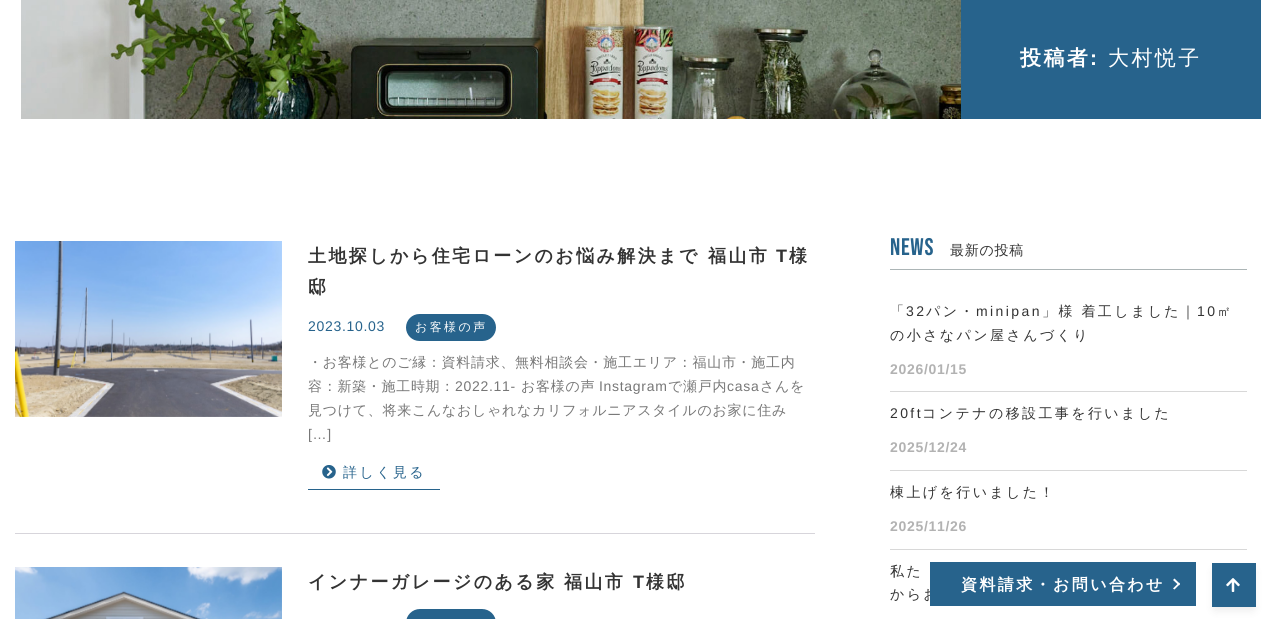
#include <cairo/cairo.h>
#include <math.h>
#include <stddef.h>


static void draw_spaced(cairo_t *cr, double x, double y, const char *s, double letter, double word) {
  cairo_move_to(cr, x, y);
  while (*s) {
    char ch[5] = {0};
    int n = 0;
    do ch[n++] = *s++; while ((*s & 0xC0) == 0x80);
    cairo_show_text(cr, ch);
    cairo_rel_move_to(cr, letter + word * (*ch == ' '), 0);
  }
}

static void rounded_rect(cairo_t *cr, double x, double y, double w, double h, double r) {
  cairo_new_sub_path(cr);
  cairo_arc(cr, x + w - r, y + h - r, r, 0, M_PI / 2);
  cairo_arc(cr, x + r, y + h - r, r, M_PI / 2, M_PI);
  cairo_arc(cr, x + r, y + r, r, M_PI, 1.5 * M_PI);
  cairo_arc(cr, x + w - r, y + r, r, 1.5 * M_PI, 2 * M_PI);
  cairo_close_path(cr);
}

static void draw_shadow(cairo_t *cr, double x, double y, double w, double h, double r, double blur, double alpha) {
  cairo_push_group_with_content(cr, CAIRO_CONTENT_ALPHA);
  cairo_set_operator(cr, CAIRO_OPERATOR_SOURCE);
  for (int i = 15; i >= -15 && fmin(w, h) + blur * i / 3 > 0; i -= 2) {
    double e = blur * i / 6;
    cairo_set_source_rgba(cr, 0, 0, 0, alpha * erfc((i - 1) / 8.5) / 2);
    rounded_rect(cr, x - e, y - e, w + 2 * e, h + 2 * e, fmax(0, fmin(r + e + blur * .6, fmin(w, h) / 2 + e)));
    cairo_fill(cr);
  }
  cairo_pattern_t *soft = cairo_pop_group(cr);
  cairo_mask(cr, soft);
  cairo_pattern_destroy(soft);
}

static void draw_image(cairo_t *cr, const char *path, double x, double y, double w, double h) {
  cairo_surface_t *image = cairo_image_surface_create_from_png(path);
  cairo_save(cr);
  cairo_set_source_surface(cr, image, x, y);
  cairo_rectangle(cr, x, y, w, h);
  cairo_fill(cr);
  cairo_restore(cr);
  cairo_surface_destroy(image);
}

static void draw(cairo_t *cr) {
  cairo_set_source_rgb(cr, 1, 1, 1);
  cairo_paint(cr);
  draw_image(cr, "images/1.png", 21, 0, 940, 119);
  cairo_set_source_rgb(cr, 39 / 255.0, 99 / 255.0, 140 / 255.0);
  cairo_rectangle(cr, 961, 0, 300, 119);
  cairo_fill(cr);
  cairo_set_source_rgb(cr, 215 / 255.0, 213 / 255.0, 219 / 255.0);
  cairo_rectangle(cr, 15, 533, 800, 1);
  cairo_fill(cr);
  draw_image(cr, "images/2.png", 15, 241, 267, 176);
  cairo_set_source_rgb(cr, 39 / 255.0, 99 / 255.0, 140 / 255.0);
  rounded_rect(cr, 406, 314, 90, 27, 13.5);
  cairo_fill(cr);
  cairo_rectangle(cr, 308, 489, 132, 1);
  cairo_fill(cr);
  draw_image(cr, "images/3.png", 322, 465, 14, 14);
  draw_image(cr, "images/4.png", 15, 567, 267, 52);
  rounded_rect(cr, 406, 609, 90, 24, 14);
  cairo_fill(cr);
  cairo_set_source_rgb(cr, 172 / 255.0, 181 / 255.0, 182 / 255.0);
  cairo_rectangle(cr, 890, 269, 357, 1);
  cairo_fill(cr);
  cairo_set_source_rgb(cr, 216 / 255.0, 216 / 255.0, 216 / 255.0);
  cairo_rectangle(cr, 890, 391, 357, 1);
  cairo_fill(cr);
  cairo_rectangle(cr, 890, 470, 357, 1);
  cairo_fill(cr);
  cairo_rectangle(cr, 890, 549, 357, 1);
  cairo_fill(cr);
  cairo_set_source_rgb(cr, 0, 0, 0);
  draw_shadow(cr, 1215, 571, 38, 38, 0, 5, 0.1);
  cairo_set_source_rgb(cr, 39 / 255.0, 99 / 255.0, 140 / 255.0);
  cairo_rectangle(cr, 1212, 563, 44, 44);
  cairo_fill(cr);
  draw_image(cr, "images/5.png", 1226, 578, 14, 14);
  cairo_select_font_face(cr, "WenQuanYi Zen Hei", CAIRO_FONT_SLANT_NORMAL, CAIRO_FONT_WEIGHT_BOLD);
  cairo_set_font_size(cr, 21);
  cairo_set_source_rgb(cr, 1, 1, 1);
  draw_spaced(cr, 1020, 65, "投稿者", 2.4, 0);
  cairo_select_font_face(cr, "Liberation Sans", CAIRO_FONT_SLANT_NORMAL, CAIRO_FONT_WEIGHT_BOLD);
  draw_spaced(cr, 1090, 65, ":", 2.4, 0);
  cairo_select_font_face(cr, "WenQuanYi Zen Hei Medium", CAIRO_FONT_SLANT_NORMAL, CAIRO_FONT_WEIGHT_NORMAL);
  draw_spaced(cr, 1108, 65, "大村悦子", 2.4, 0);
  cairo_select_font_face(cr, "WenQuanYi Zen Hei", CAIRO_FONT_SLANT_NORMAL, CAIRO_FONT_WEIGHT_BOLD);
  cairo_set_font_size(cr, 18);
  cairo_set_source_rgb(cr, 51 / 255.0, 51 / 255.0, 51 / 255.0);
  draw_spaced(cr, 308, 262, "土地探しから住宅ローンのお悩み解決まで", 2.4, 0);
  draw_spaced(cr, 708, 262, "福山市", 2.4, 0);
  cairo_select_font_face(cr, "Liberation Sans", CAIRO_FONT_SLANT_NORMAL, CAIRO_FONT_WEIGHT_BOLD);
  draw_spaced(cr, 776, 262, "T", 2.4, 0);
  cairo_select_font_face(cr, "WenQuanYi Zen Hei", CAIRO_FONT_SLANT_NORMAL, CAIRO_FONT_WEIGHT_BOLD);
  draw_spaced(cr, 789, 262, "様", 2.4, 0);
  draw_spaced(cr, 308, 293, "邸", 2.4, 0);
  cairo_select_font_face(cr, "Liberation Sans", CAIRO_FONT_SLANT_NORMAL, CAIRO_FONT_WEIGHT_NORMAL);
  cairo_set_font_size(cr, 14);
  cairo_set_source_rgb(cr, 39 / 255.0, 99 / 255.0, 140 / 255.0);
  draw_spaced(cr, 308, 331, "2023.10.03", 0.7, 0);
  cairo_select_font_face(cr, "WenQuanYi Zen Hei Medium", CAIRO_FONT_SLANT_NORMAL, CAIRO_FONT_WEIGHT_NORMAL);
  cairo_set_font_size(cr, 12);
  cairo_set_source_rgb(cr, 1, 1, 1);
  draw_spaced(cr, 415, 331, "お客様の声", 2.4, 0);
  cairo_set_font_size(cr, 14);
  cairo_set_source_rgb(cr, 119 / 255.0, 119 / 255.0, 119 / 255.0);
  draw_spaced(cr, 308, 367, "・お客様とのご縁：資料請求、無料相談会・施工エリア：福山市・施工内", 0.7, 0);
  draw_spaced(cr, 308, 391, "容：新築・施工時期：", 0.7, 0);
  cairo_select_font_face(cr, "Liberation Sans", CAIRO_FONT_SLANT_NORMAL, CAIRO_FONT_WEIGHT_NORMAL);
  draw_spaced(cr, 455, 391, "2022.11-", 0.7, 0);
  cairo_select_font_face(cr, "WenQuanYi Zen Hei Medium", CAIRO_FONT_SLANT_NORMAL, CAIRO_FONT_WEIGHT_NORMAL);
  draw_spaced(cr, 521, 391, "お客様の声", 0.7, 0);
  cairo_select_font_face(cr, "Liberation Sans", CAIRO_FONT_SLANT_NORMAL, CAIRO_FONT_WEIGHT_NORMAL);
  draw_spaced(cr, 599, 391, "Instagram", 0.7, 0);
  cairo_select_font_face(cr, "WenQuanYi Zen Hei Medium", CAIRO_FONT_SLANT_NORMAL, CAIRO_FONT_WEIGHT_NORMAL);
  draw_spaced(cr, 668, 391, "で瀬戸内", 0.7, 0);
  cairo_select_font_face(cr, "Liberation Sans", CAIRO_FONT_SLANT_NORMAL, CAIRO_FONT_WEIGHT_NORMAL);
  draw_spaced(cr, 727, 391, "casa", 0.7, 0);
  cairo_select_font_face(cr, "WenQuanYi Zen Hei Medium", CAIRO_FONT_SLANT_NORMAL, CAIRO_FONT_WEIGHT_NORMAL);
  draw_spaced(cr, 760, 391, "さんを", 0.7, 0);
  draw_spaced(cr, 308, 415, "見つけて、将来こんなおしゃれなカリフォルニアスタイルのお家に住み", 0.7, 0);
  cairo_select_font_face(cr, "Liberation Sans", CAIRO_FONT_SLANT_NORMAL, CAIRO_FONT_WEIGHT_NORMAL);
  draw_spaced(cr, 308, 439, "[…]", 0.7, 0);
  cairo_select_font_face(cr, "WenQuanYi Zen Hei Medium", CAIRO_FONT_SLANT_NORMAL, CAIRO_FONT_WEIGHT_NORMAL);
  cairo_set_source_rgb(cr, 39 / 255.0, 99 / 255.0, 140 / 255.0);
  draw_spaced(cr, 343, 477, "詳しく見る", 2.4, 0);
  cairo_select_font_face(cr, "WenQuanYi Zen Hei", CAIRO_FONT_SLANT_NORMAL, CAIRO_FONT_WEIGHT_BOLD);
  cairo_set_font_size(cr, 18);
  cairo_set_source_rgb(cr, 51 / 255.0, 51 / 255.0, 51 / 255.0);
  draw_spaced(cr, 308, 588, "インナーガレージのある家", 2.4, 0);
  draw_spaced(cr, 564, 588, "福山市", 2.4, 0);
  cairo_select_font_face(cr, "Liberation Sans", CAIRO_FONT_SLANT_NORMAL, CAIRO_FONT_WEIGHT_BOLD);
  draw_spaced(cr, 633, 588, "T", 2.4, 0);
  cairo_select_font_face(cr, "WenQuanYi Zen Hei", CAIRO_FONT_SLANT_NORMAL, CAIRO_FONT_WEIGHT_BOLD);
  draw_spaced(cr, 646, 588, "様邸", 2.4, 0);
  cairo_select_font_face(cr, "Bebas Neue", CAIRO_FONT_SLANT_NORMAL, CAIRO_FONT_WEIGHT_NORMAL);
  cairo_set_font_size(cr, 24);
  cairo_set_source_rgb(cr, 39 / 255.0, 99 / 255.0, 140 / 255.0);
  draw_spaced(cr, 890, 255, "News", 0.7, 0);
  cairo_select_font_face(cr, "WenQuanYi Zen Hei Medium", CAIRO_FONT_SLANT_NORMAL, CAIRO_FONT_WEIGHT_NORMAL);
  cairo_set_font_size(cr, 14);
  cairo_set_source_rgb(cr, 51 / 255.0, 51 / 255.0, 51 / 255.0);
  draw_spaced(cr, 950, 255, "最新の投稿", 0.7, 0);
  draw_spaced(cr, 890, 316, "「", 2.4, 0);
  cairo_select_font_face(cr, "Liberation Sans", CAIRO_FONT_SLANT_NORMAL, CAIRO_FONT_WEIGHT_NORMAL);
  draw_spaced(cr, 906, 316, "32", 2.4, 0);
  cairo_select_font_face(cr, "WenQuanYi Zen Hei Medium", CAIRO_FONT_SLANT_NORMAL, CAIRO_FONT_WEIGHT_NORMAL);
  draw_spaced(cr, 926, 316, "パン・", 2.4, 0);
  cairo_select_font_face(cr, "Liberation Sans", CAIRO_FONT_SLANT_NORMAL, CAIRO_FONT_WEIGHT_NORMAL);
  draw_spaced(cr, 976, 316, "minipan", 2.4, 0);
  cairo_select_font_face(cr, "WenQuanYi Zen Hei Medium", CAIRO_FONT_SLANT_NORMAL, CAIRO_FONT_WEIGHT_NORMAL);
  draw_spaced(cr, 1042, 316, "」様 着工しました｜", 2.4, 0);
  cairo_select_font_face(cr, "Liberation Sans", CAIRO_FONT_SLANT_NORMAL, CAIRO_FONT_WEIGHT_NORMAL);
  draw_spaced(cr, 1197, 316, "10", 2.4, 0);
  cairo_select_font_face(cr, "WenQuanYi Zen Hei Medium", CAIRO_FONT_SLANT_NORMAL, CAIRO_FONT_WEIGHT_NORMAL);
  draw_spaced(cr, 1217, 316, "㎡", 2.4, 0);
  draw_spaced(cr, 890, 340, "の小さなパン屋さんづくり", 2.4, 0);
  cairo_select_font_face(cr, "Liberation Sans", CAIRO_FONT_SLANT_NORMAL, CAIRO_FONT_WEIGHT_BOLD);
  cairo_set_source_rgb(cr, 178 / 255.0, 178 / 255.0, 178 / 255.0);
  draw_spaced(cr, 890, 374, "2026/01/15", 0.7, 0);
  cairo_select_font_face(cr, "Liberation Sans", CAIRO_FONT_SLANT_NORMAL, CAIRO_FONT_WEIGHT_NORMAL);
  cairo_set_source_rgb(cr, 51 / 255.0, 51 / 255.0, 51 / 255.0);
  draw_spaced(cr, 890, 418, "20ft", 2.4, 0);
  cairo_select_font_face(cr, "WenQuanYi Zen Hei Medium", CAIRO_FONT_SLANT_NORMAL, CAIRO_FONT_WEIGHT_NORMAL);
  draw_spaced(cr, 922, 418, "コンテナの移設工事を行いました", 2.4, 0);
  cairo_select_font_face(cr, "Liberation Sans", CAIRO_FONT_SLANT_NORMAL, CAIRO_FONT_WEIGHT_BOLD);
  cairo_set_source_rgb(cr, 178 / 255.0, 178 / 255.0, 178 / 255.0);
  draw_spaced(cr, 890, 452, "2025/12/24", 0.7, 0);
  cairo_select_font_face(cr, "WenQuanYi Zen Hei Medium", CAIRO_FONT_SLANT_NORMAL, CAIRO_FONT_WEIGHT_NORMAL);
  cairo_set_source_rgb(cr, 51 / 255.0, 51 / 255.0, 51 / 255.0);
  draw_spaced(cr, 890, 497, "棟上げを行いました！", 2.4, 0);
  cairo_select_font_face(cr, "Liberation Sans", CAIRO_FONT_SLANT_NORMAL, CAIRO_FONT_WEIGHT_BOLD);
  cairo_set_source_rgb(cr, 178 / 255.0, 178 / 255.0, 178 / 255.0);
  draw_spaced(cr, 890, 531, "2025/11/26", 0.7, 0);
  cairo_select_font_face(cr, "WenQuanYi Zen Hei Medium", CAIRO_FONT_SLANT_NORMAL, CAIRO_FONT_WEIGHT_NORMAL);
  cairo_set_source_rgb(cr, 51 / 255.0, 51 / 255.0, 51 / 255.0);
  draw_spaced(cr, 890, 576, "私た", 2.4, 0);
  draw_spaced(cr, 890, 599, "からお", 2.4, 0);
  cairo_set_source_rgb(cr, 39 / 255.0, 99 / 255.0, 140 / 255.0);
  cairo_rectangle(cr, 930, 562, 266, 44);
  cairo_fill(cr);
  cairo_select_font_face(cr, "WenQuanYi Zen Hei", CAIRO_FONT_SLANT_NORMAL, CAIRO_FONT_WEIGHT_BOLD);
  cairo_set_font_size(cr, 16);
  cairo_set_source_rgb(cr, 1, 1, 1);
  draw_spaced(cr, 961, 590, "資料請求・お問い合わせ", 2.4, 0);
  cairo_new_path(cr);
  cairo_move_to(cr, 1174.5, 578.5);
  cairo_line_to(cr, 1180, 584);
  cairo_line_to(cr, 1179, 585.5);
  cairo_line_to(cr, 1173, 580);
  cairo_close_path(cr);
  cairo_fill(cr);
  cairo_new_path(cr);
  cairo_move_to(cr, 1179, 582.5);
  cairo_line_to(cr, 1180, 584);
  cairo_line_to(cr, 1174.5, 589.5);
  cairo_line_to(cr, 1173, 588.5);
  cairo_close_path(cr);
  cairo_fill(cr);
}

int main(void) {
  cairo_surface_t *surface = cairo_image_surface_create(CAIRO_FORMAT_RGB24, 1282, 619);
  cairo_t *cr = cairo_create(surface);
  cairo_font_options_t *options = cairo_font_options_create();
  cairo_font_options_set_hint_metrics(options, CAIRO_HINT_METRICS_OFF);
  cairo_font_options_set_hint_style(options, CAIRO_HINT_STYLE_NONE);
  cairo_set_font_options(cr, options);
  cairo_set_miter_limit(cr, 4);
  draw(cr);
  cairo_surface_write_to_png(surface, "out.png");
  cairo_font_options_destroy(options);
  cairo_destroy(cr);
  cairo_surface_destroy(surface);
  return 0;
}
